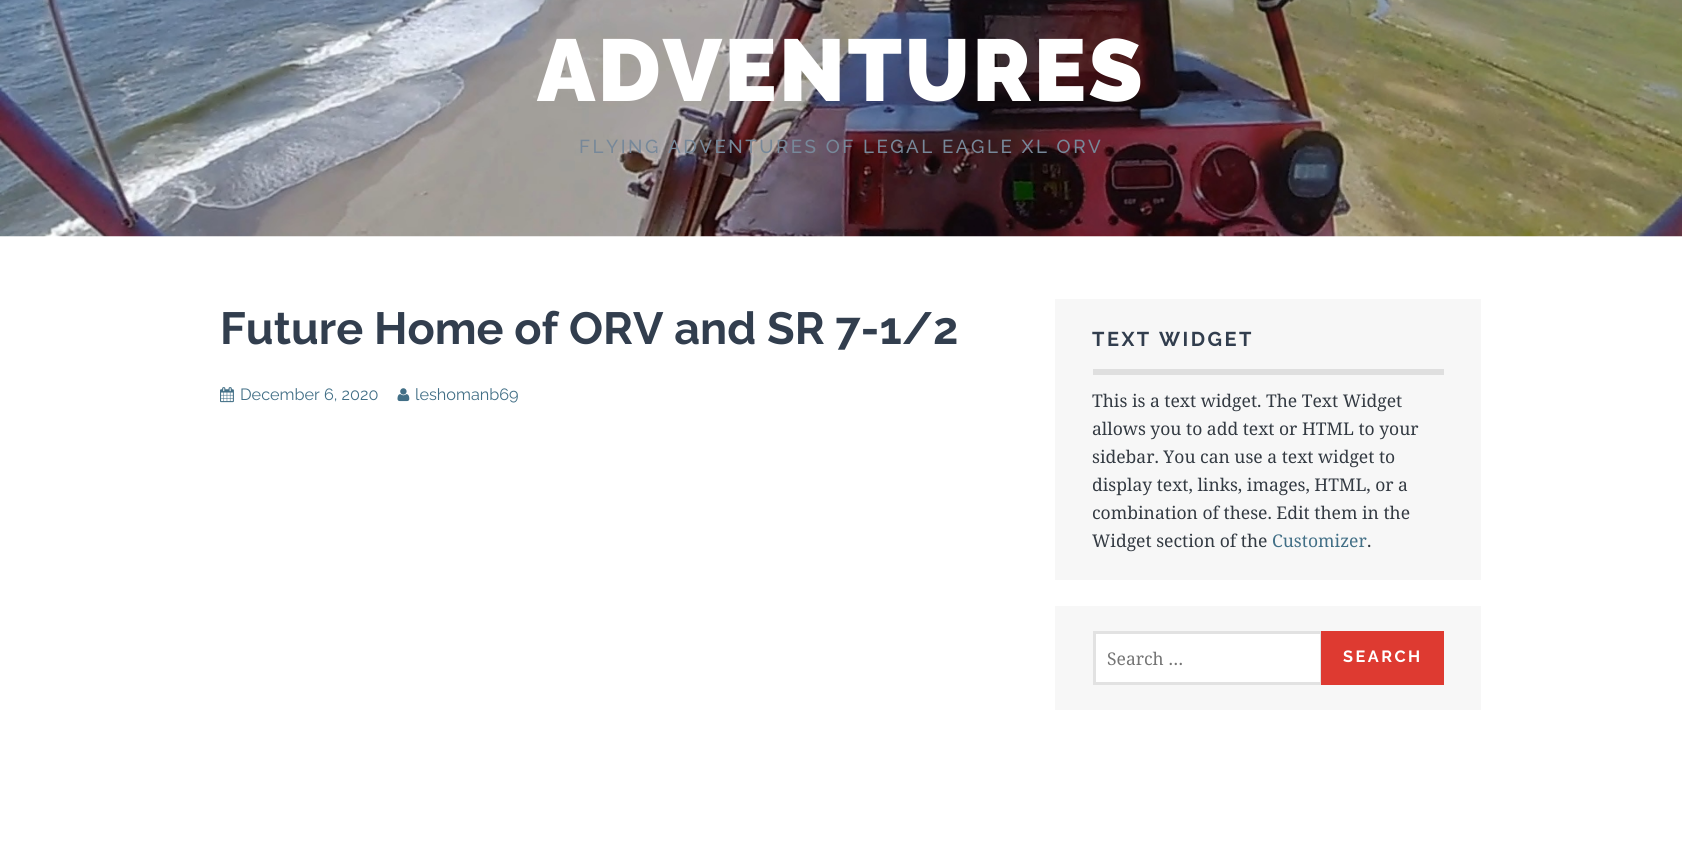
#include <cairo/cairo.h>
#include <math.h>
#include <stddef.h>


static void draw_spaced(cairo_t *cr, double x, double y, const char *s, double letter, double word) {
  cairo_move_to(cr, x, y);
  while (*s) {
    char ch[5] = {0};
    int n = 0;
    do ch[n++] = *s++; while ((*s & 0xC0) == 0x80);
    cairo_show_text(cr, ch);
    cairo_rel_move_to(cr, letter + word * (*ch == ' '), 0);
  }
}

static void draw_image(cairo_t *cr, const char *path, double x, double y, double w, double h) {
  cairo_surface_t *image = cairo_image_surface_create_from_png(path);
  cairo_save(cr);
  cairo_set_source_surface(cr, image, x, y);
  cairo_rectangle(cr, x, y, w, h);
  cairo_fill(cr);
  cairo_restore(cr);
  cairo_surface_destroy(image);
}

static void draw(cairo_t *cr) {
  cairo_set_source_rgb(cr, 1, 1, 1);
  cairo_paint(cr);
  draw_image(cr, "images/1.png", 0, 0, 1682, 237);
  draw_image(cr, "images/2.png", 220, 387, 14, 16);
  draw_image(cr, "images/3.png", 397, 388, 13, 14);
  cairo_set_source_rgb(cr, 247 / 255.0, 247 / 255.0, 247 / 255.0);
  cairo_rectangle(cr, 1055, 299, 426, 281);
  cairo_fill(cr);
  cairo_set_source_rgb(cr, 223 / 255.0, 223 / 255.0, 223 / 255.0);
  cairo_rectangle(cr, 1093, 369, 351, 6);
  cairo_fill(cr);
  cairo_set_source_rgb(cr, 247 / 255.0, 247 / 255.0, 247 / 255.0);
  cairo_rectangle(cr, 1055, 606, 426, 104);
  cairo_fill(cr);
  cairo_set_source_rgb(cr, 1, 1, 1);
  cairo_rectangle(cr, 1094.5, 632.5, 227, 51);
  cairo_fill_preserve(cr);
  cairo_set_source_rgb(cr, 226 / 255.0, 226 / 255.0, 226 / 255.0);
  cairo_set_line_width(cr, 3);
  cairo_stroke(cr);
  cairo_set_source_rgb(cr, 222 / 255.0, 58 / 255.0, 49 / 255.0);
  cairo_rectangle(cr, 1321, 631, 123, 54);
  cairo_fill(cr);
  cairo_select_font_face(cr, "Raleway Black", CAIRO_FONT_SLANT_NORMAL, CAIRO_FONT_WEIGHT_NORMAL);
  cairo_set_font_size(cr, 87.5);
  cairo_set_source_rgb(cr, 1, 1, 1);
  draw_spaced(cr, 537, 101, "ADVENTURES", 2.5, 0);
  cairo_select_font_face(cr, "Raleway Medium", CAIRO_FONT_SLANT_NORMAL, CAIRO_FONT_WEIGHT_NORMAL);
  cairo_set_font_size(cr, 18.75);
  cairo_set_source_rgb(cr, 119 / 255.0, 136 / 255.0, 153 / 255.0);
  draw_spaced(cr, 579, 153, "FLYING ADVENTURES OF LEGAL EAGLE XL ORV", 2.5, 0);
  cairo_select_font_face(cr, "Raleway", CAIRO_FONT_SLANT_NORMAL, CAIRO_FONT_WEIGHT_BOLD);
  cairo_set_font_size(cr, 45);
  cairo_set_source_rgb(cr, 50 / 255.0, 62 / 255.0, 78 / 255.0);
  cairo_move_to(cr, 220, 344);
  cairo_show_text(cr, "Future Home of ORV and SR 7-1/2");
  cairo_select_font_face(cr, "Raleway", CAIRO_FONT_SLANT_NORMAL, CAIRO_FONT_WEIGHT_NORMAL);
  cairo_set_font_size(cr, 16.25);
  cairo_set_source_rgb(cr, 66 / 255.0, 111 / 255.0, 134 / 255.0);
  cairo_move_to(cr, 240, 400);
  cairo_show_text(cr, "December 6, 2020");
  cairo_move_to(cr, 415, 400);
  cairo_show_text(cr, "leshomanb69");
  cairo_select_font_face(cr, "Raleway", CAIRO_FONT_SLANT_NORMAL, CAIRO_FONT_WEIGHT_BOLD);
  cairo_set_font_size(cr, 20);
  cairo_set_source_rgb(cr, 50 / 255.0, 62 / 255.0, 78 / 255.0);
  draw_spaced(cr, 1092, 346, "TEXT WIDGET", 2.5, 0);
  cairo_select_font_face(cr, "Noto Serif", CAIRO_FONT_SLANT_NORMAL, CAIRO_FONT_WEIGHT_NORMAL);
  cairo_set_font_size(cr, 17.5);
  cairo_set_source_rgb(cr, 51 / 255.0, 58 / 255.0, 66 / 255.0);
  cairo_move_to(cr, 1092, 407);
  cairo_show_text(cr, "This is a text widget. The Text Widget");
  cairo_move_to(cr, 1092, 435);
  cairo_show_text(cr, "allows you to add text or HTML to your");
  cairo_move_to(cr, 1092, 463);
  cairo_show_text(cr, "sidebar. You can use a text widget to");
  cairo_move_to(cr, 1092, 491);
  cairo_show_text(cr, "display text, links, images, HTML, or a");
  cairo_move_to(cr, 1092, 519);
  cairo_show_text(cr, "combination of these. Edit them in the");
  cairo_move_to(cr, 1092, 547);
  cairo_show_text(cr, "Widget section of the");
  cairo_set_source_rgb(cr, 66 / 255.0, 111 / 255.0, 134 / 255.0);
  cairo_move_to(cr, 1272, 547);
  cairo_show_text(cr, "Customizer");
  cairo_set_source_rgb(cr, 51 / 255.0, 58 / 255.0, 66 / 255.0);
  cairo_move_to(cr, 1367, 547);
  cairo_show_text(cr, ".");
  cairo_set_source_rgb(cr, 117 / 255.0, 117 / 255.0, 117 / 255.0);
  cairo_move_to(cr, 1107, 665);
  cairo_show_text(cr, "Search …");
  cairo_select_font_face(cr, "Raleway", CAIRO_FONT_SLANT_NORMAL, CAIRO_FONT_WEIGHT_BOLD);
  cairo_set_font_size(cr, 16.25);
  cairo_set_source_rgb(cr, 1, 1, 1);
  draw_spaced(cr, 1343, 662, "SEARCH", 2.5, 0);
}

int main(void) {
  cairo_surface_t *surface = cairo_image_surface_create(CAIRO_FORMAT_RGB24, 1682, 856);
  cairo_t *cr = cairo_create(surface);
  cairo_font_options_t *options = cairo_font_options_create();
  cairo_font_options_set_hint_metrics(options, CAIRO_HINT_METRICS_OFF);
  cairo_font_options_set_hint_style(options, CAIRO_HINT_STYLE_NONE);
  cairo_set_font_options(cr, options);
  cairo_set_miter_limit(cr, 4);
  draw(cr);
  cairo_surface_write_to_png(surface, "out.png");
  cairo_font_options_destroy(options);
  cairo_destroy(cr);
  cairo_surface_destroy(surface);
  return 0;
}
